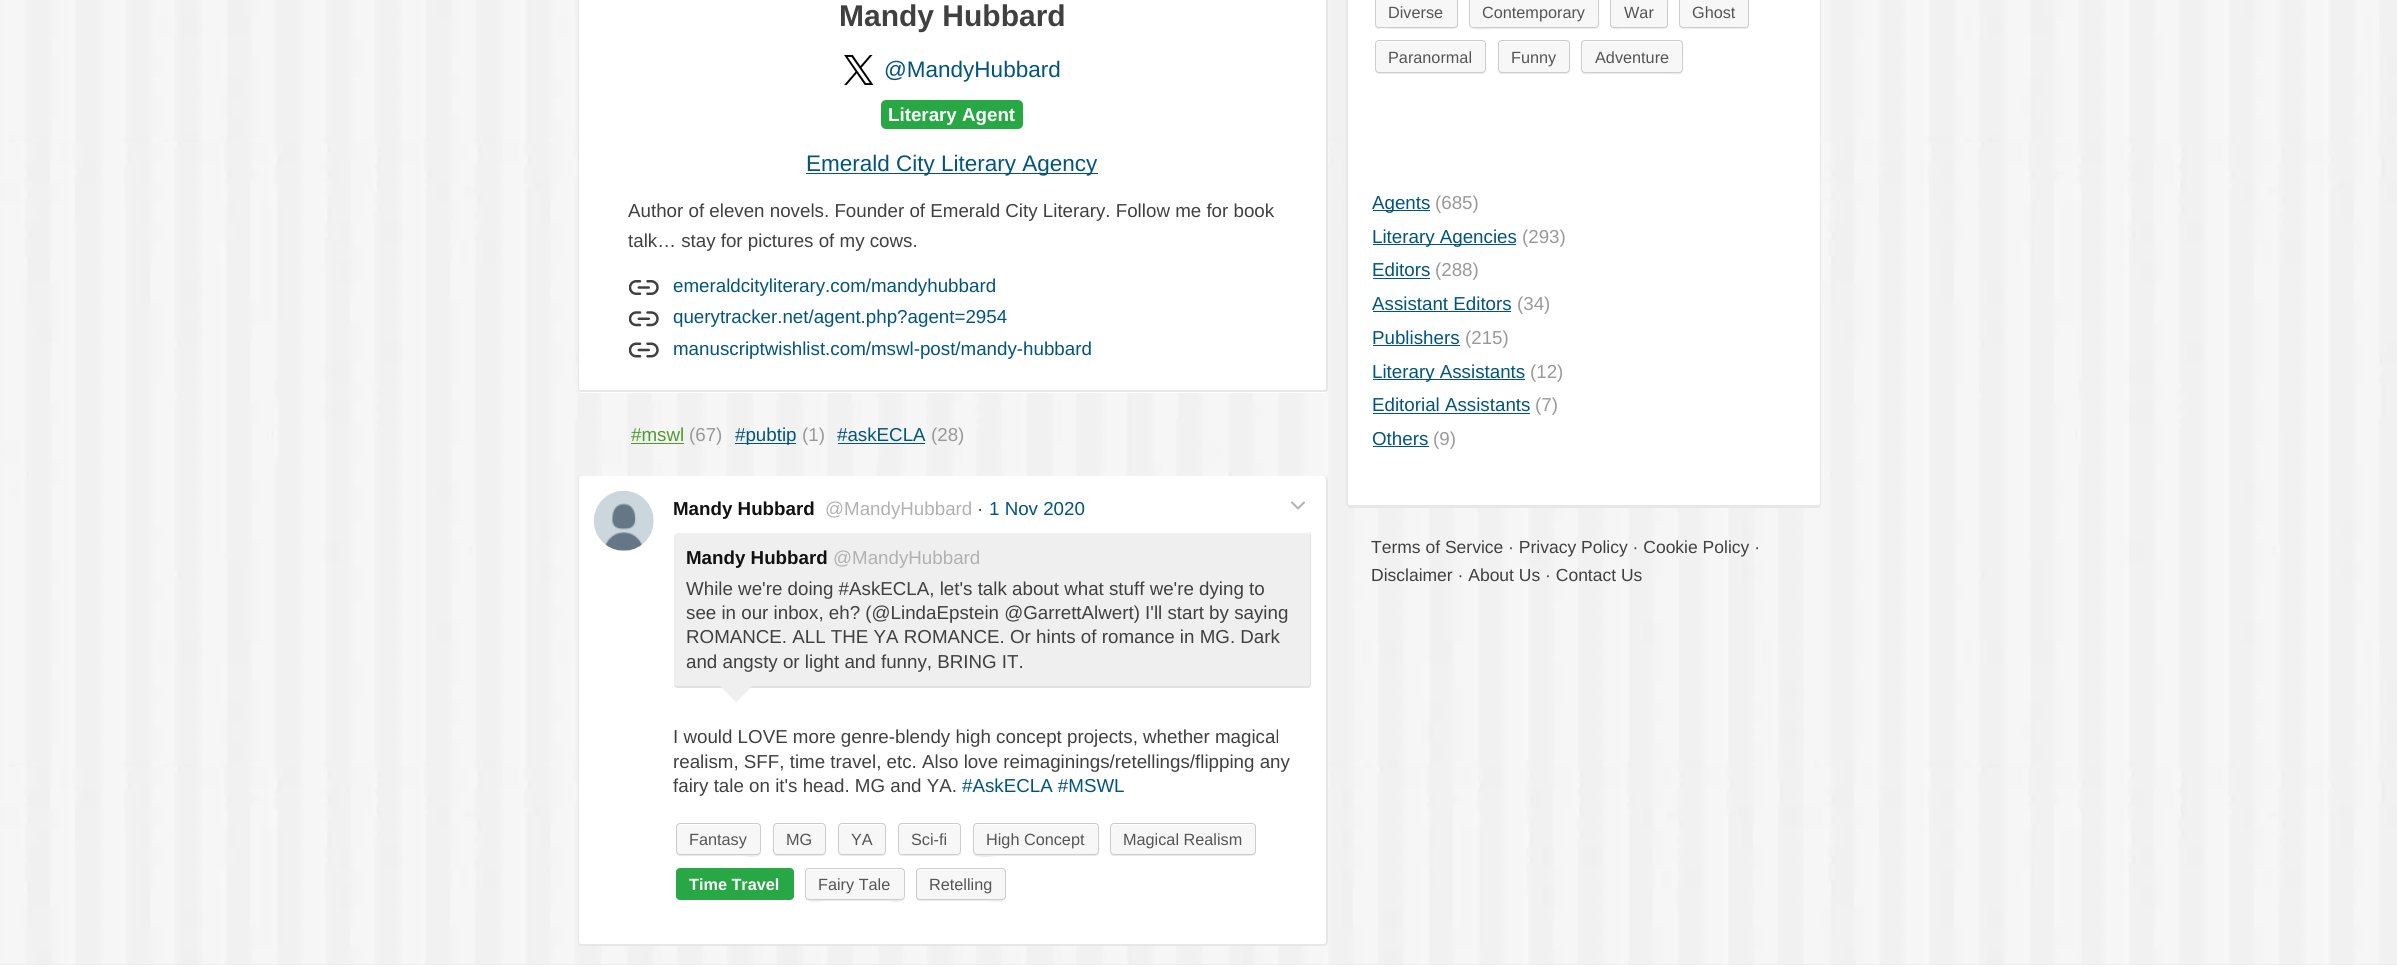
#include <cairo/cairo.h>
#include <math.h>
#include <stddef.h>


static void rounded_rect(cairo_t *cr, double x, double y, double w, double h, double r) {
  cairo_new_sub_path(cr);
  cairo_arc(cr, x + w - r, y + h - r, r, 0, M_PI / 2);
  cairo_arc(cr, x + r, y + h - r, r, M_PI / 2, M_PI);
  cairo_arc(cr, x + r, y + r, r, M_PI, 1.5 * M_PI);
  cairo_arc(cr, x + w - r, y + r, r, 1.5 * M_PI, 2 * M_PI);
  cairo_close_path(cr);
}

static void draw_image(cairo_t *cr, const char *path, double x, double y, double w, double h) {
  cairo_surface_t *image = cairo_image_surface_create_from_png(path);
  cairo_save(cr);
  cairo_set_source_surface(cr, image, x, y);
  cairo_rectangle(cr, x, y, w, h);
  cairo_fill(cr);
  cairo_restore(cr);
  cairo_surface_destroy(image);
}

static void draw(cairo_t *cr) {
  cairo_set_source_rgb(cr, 229 / 255.0, 229 / 255.0, 229 / 255.0);
  cairo_paint(cr);
  draw_image(cr, "images/1.png", 0, 0, 2397, 965);
  cairo_set_source_rgb(cr, 1, 1, 1);
  rounded_rect(cr, 578, -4, 750, 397, 4);
  cairo_fill(cr);
  cairo_set_source_rgb(cr, 231 / 255.0, 231 / 255.0, 231 / 255.0);
  cairo_set_fill_rule(cr, CAIRO_FILL_RULE_EVEN_ODD);
  cairo_new_path(cr);
  cairo_move_to(cr, 581, -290);
  cairo_line_to(cr, 1324, -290);
  cairo_curve_to(cr, 1326, -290, 1328, -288, 1328, -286);
  cairo_line_to(cr, 1328, 389);
  cairo_curve_to(cr, 1328, 391, 1326, 392, 1324, 392);
  cairo_line_to(cr, 581, 392);
  cairo_curve_to(cr, 579, 392, 578, 391, 578, 389);
  cairo_line_to(cr, 578, -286);
  cairo_curve_to(cr, 578, -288, 579, -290, 581, -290);
  cairo_close_path(cr);
  cairo_move_to(cr, 581, -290);
  cairo_line_to(cr, 1324, -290);
  cairo_curve_to(cr, 1325, -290, 1326, -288, 1326, -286);
  cairo_line_to(cr, 1326, 389);
  cairo_curve_to(cr, 1326, 389, 1325, 390, 1324, 390);
  cairo_line_to(cr, 581, 390);
  cairo_curve_to(cr, 580, 390, 579, 389, 579, 389);
  cairo_line_to(cr, 579, -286);
  cairo_curve_to(cr, 579, -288, 580, -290, 581, -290);
  cairo_close_path(cr);
  cairo_fill(cr);
  draw_image(cr, "images/2.png", 844, 55, 30, 30);
  cairo_set_source_rgb(cr, 40 / 255.0, 167 / 255.0, 69 / 255.0);
  rounded_rect(cr, 881, 100, 142, 29, 5);
  cairo_fill(cr);
  cairo_set_source_rgb(cr, 0, 84 / 255.0, 126 / 255.0);
  cairo_rectangle(cr, 806, 173, 292, 1);
  cairo_fill(cr);
  draw_image(cr, "images/3.png", 629, 280, 30, 15);
  draw_image(cr, "images/4.png", 629, 311, 30, 16);
  draw_image(cr, "images/5.png", 629, 342, 30, 16);
  cairo_set_source_rgb(cr, 77 / 255.0, 156 / 255.0, 42 / 255.0);
  cairo_rectangle(cr, 631, 443, 53, 1);
  cairo_fill(cr);
  cairo_set_source_rgb(cr, 0, 84 / 255.0, 126 / 255.0);
  cairo_rectangle(cr, 735, 443, 61, 1);
  cairo_fill(cr);
  cairo_rectangle(cr, 838, 443, 87, 1);
  cairo_fill(cr);
  cairo_set_source_rgb(cr, 1, 1, 1);
  rounded_rect(cr, 578, 476, 750, 470, 4);
  cairo_fill(cr);
  cairo_set_source_rgb(cr, 231 / 255.0, 231 / 255.0, 231 / 255.0);
  cairo_new_path(cr);
  cairo_move_to(cr, 581, 476);
  cairo_line_to(cr, 1324, 476);
  cairo_curve_to(cr, 1326, 476, 1328, 478, 1328, 480);
  cairo_line_to(cr, 1328, 942);
  cairo_curve_to(cr, 1328, 945, 1326, 946, 1324, 946);
  cairo_line_to(cr, 581, 946);
  cairo_curve_to(cr, 579, 946, 578, 945, 578, 942);
  cairo_line_to(cr, 578, 480);
  cairo_curve_to(cr, 578, 478, 579, 476, 581, 476);
  cairo_close_path(cr);
  cairo_move_to(cr, 581, 476);
  cairo_line_to(cr, 1324, 476);
  cairo_curve_to(cr, 1325, 476, 1326, 478, 1326, 480);
  cairo_line_to(cr, 1326, 942);
  cairo_curve_to(cr, 1326, 943, 1325, 944, 1324, 944);
  cairo_line_to(cr, 581, 944);
  cairo_curve_to(cr, 580, 944, 579, 943, 579, 942);
  cairo_line_to(cr, 579, 480);
  cairo_curve_to(cr, 579, 478, 580, 476, 581, 476);
  cairo_close_path(cr);
  cairo_fill(cr);
  draw_image(cr, "images/6.png", 594, 491, 60, 60);
  cairo_new_path(cr);
  cairo_move_to(cr, 1292, 502.5);
  cairo_line_to(cr, 1298, 508.5);
  cairo_line_to(cr, 1304, 502.5);
  cairo_set_source_rgb(cr, 177 / 255.0, 177 / 255.0, 177 / 255.0);
  cairo_set_line_cap(cr, CAIRO_LINE_CAP_ROUND);
  cairo_set_line_join(cr, CAIRO_LINE_JOIN_ROUND);
  cairo_stroke(cr);
  cairo_set_source_rgb(cr, 239 / 255.0, 239 / 255.0, 239 / 255.0);
  rounded_rect(cr, 674, 533, 637, 155, 4);
  cairo_fill(cr);
  cairo_set_source_rgb(cr, 225 / 255.0, 225 / 255.0, 225 / 255.0);
  cairo_new_path(cr);
  cairo_move_to(cr, 678, 532);
  cairo_line_to(cr, 1308, 532);
  cairo_curve_to(cr, 1310, 532, 1311, 534, 1311, 536);
  cairo_line_to(cr, 1311, 684);
  cairo_curve_to(cr, 1311, 686, 1310, 688, 1308, 688);
  cairo_line_to(cr, 678, 688);
  cairo_curve_to(cr, 675, 688, 674, 686, 674, 684);
  cairo_line_to(cr, 674, 536);
  cairo_curve_to(cr, 674, 534, 675, 532, 678, 532);
  cairo_close_path(cr);
  cairo_move_to(cr, 678, 532);
  cairo_line_to(cr, 1308, 532);
  cairo_curve_to(cr, 1309, 532, 1310, 534, 1310, 536);
  cairo_line_to(cr, 1310, 684);
  cairo_curve_to(cr, 1310, 685, 1309, 686, 1308, 686);
  cairo_line_to(cr, 678, 686);
  cairo_curve_to(cr, 675, 686, 674, 685, 674, 684);
  cairo_line_to(cr, 674, 536);
  cairo_curve_to(cr, 674, 534, 675, 532, 678, 532);
  cairo_close_path(cr);
  cairo_fill(cr);
  cairo_set_source_rgb(cr, 239 / 255.0, 239 / 255.0, 239 / 255.0);
  cairo_set_fill_rule(cr, CAIRO_FILL_RULE_WINDING);
  cairo_new_path(cr);
  cairo_move_to(cr, 720, 686);
  cairo_line_to(cr, 752.5, 686);
  cairo_line_to(cr, 736, 702.5);
  cairo_close_path(cr);
  cairo_fill(cr);
  cairo_set_source_rgb(cr, 235 / 255.0, 235 / 255.0, 235 / 255.0);
  cairo_new_path(cr);
  cairo_move_to(cr, 676, 827);
  cairo_line_to(cr, 676, 844);
  cairo_curve_to(cr, 676, 859, 676, 856, 693, 856);
  cairo_line_to(cr, 744, 856);
  cairo_curve_to(cr, 745, 856, 760, 859, 761, 853);
  cairo_curve_to(cr, 760, 854, 759, 855, 758, 855);
  cairo_line_to(cr, 680, 855);
  cairo_curve_to(cr, 678, 855, 676, 853, 676, 851);
  cairo_close_path(cr);
  cairo_fill(cr);
  cairo_set_source_rgb(cr, 247 / 255.0, 247 / 255.0, 247 / 255.0);
  rounded_rect(cr, 676, 823, 85, 32, 4);
  cairo_fill(cr);
  cairo_set_source_rgb(cr, 1, 1, 1);
  cairo_new_path(cr);
  cairo_move_to(cr, 680, 825);
  cairo_line_to(cr, 758, 825);
  cairo_curve_to(cr, 759, 825, 760, 826, 760, 828);
  cairo_curve_to(cr, 760, 821, 750, 824, 745, 824);
  cairo_line_to(cr, 693, 824);
  cairo_curve_to(cr, 688, 824, 678, 821, 678, 828);
  cairo_curve_to(cr, 678, 826, 679, 825, 680, 825);
  cairo_close_path(cr);
  cairo_fill(cr);
  rounded_rect(cr, 676.5, 823.5, 84, 31, 3.5);
  cairo_set_source_rgb(cr, 204 / 255.0, 204 / 255.0, 204 / 255.0);
  cairo_set_line_width(cr, 1);
  cairo_set_line_cap(cr, CAIRO_LINE_CAP_BUTT);
  cairo_set_line_join(cr, CAIRO_LINE_JOIN_MITER);
  cairo_stroke(cr);
  cairo_set_source_rgb(cr, 235 / 255.0, 235 / 255.0, 235 / 255.0);
  cairo_new_path(cr);
  cairo_move_to(cr, 773, 854);
  cairo_curve_to(cr, 774, 855, 775, 856, 777, 856);
  cairo_line_to(cr, 822, 856);
  cairo_curve_to(cr, 824, 856, 826, 855, 826, 853);
  cairo_curve_to(cr, 825, 854, 824, 855, 822, 855);
  cairo_line_to(cr, 776, 855);
  cairo_curve_to(cr, 775, 855, 774, 854, 773, 854);
  cairo_close_path(cr);
  cairo_fill(cr);
  cairo_set_source_rgb(cr, 247 / 255.0, 247 / 255.0, 247 / 255.0);
  rounded_rect(cr, 773, 823, 53, 32, 4);
  cairo_fill(cr);
  cairo_set_source_rgb(cr, 1, 1, 1);
  cairo_new_path(cr);
  cairo_move_to(cr, 776, 825);
  cairo_line_to(cr, 822, 825);
  cairo_curve_to(cr, 824, 825, 825, 826, 825, 828);
  cairo_curve_to(cr, 825, 822, 820, 824, 815, 824);
  cairo_line_to(cr, 784, 824);
  cairo_curve_to(cr, 779, 824, 774, 822, 774, 828);
  cairo_curve_to(cr, 774, 826, 775, 825, 776, 825);
  cairo_close_path(cr);
  cairo_fill(cr);
  rounded_rect(cr, 773.5, 823.5, 52, 31, 3.5);
  cairo_set_source_rgb(cr, 204 / 255.0, 204 / 255.0, 204 / 255.0);
  cairo_stroke(cr);
  cairo_set_source_rgb(cr, 235 / 255.0, 235 / 255.0, 235 / 255.0);
  cairo_new_path(cr);
  cairo_move_to(cr, 838, 854);
  cairo_curve_to(cr, 839, 855, 840, 856, 842, 856);
  cairo_line_to(cr, 882, 856);
  cairo_curve_to(cr, 884, 856, 886, 855, 886, 853);
  cairo_curve_to(cr, 885, 854, 884, 855, 882, 855);
  cairo_line_to(cr, 841, 855);
  cairo_curve_to(cr, 840, 855, 839, 854, 838, 854);
  cairo_close_path(cr);
  cairo_fill(cr);
  cairo_set_source_rgb(cr, 247 / 255.0, 247 / 255.0, 247 / 255.0);
  rounded_rect(cr, 838, 823, 48, 32, 4);
  cairo_fill(cr);
  cairo_set_source_rgb(cr, 1, 1, 1);
  cairo_new_path(cr);
  cairo_move_to(cr, 841, 825);
  cairo_line_to(cr, 882, 825);
  cairo_curve_to(cr, 884, 825, 885, 826, 885, 828);
  cairo_curve_to(cr, 885, 822, 881, 824, 876, 824);
  cairo_line_to(cr, 848, 824);
  cairo_curve_to(cr, 843, 824, 839, 822, 839, 828);
  cairo_curve_to(cr, 839, 826, 840, 825, 841, 825);
  cairo_close_path(cr);
  cairo_fill(cr);
  rounded_rect(cr, 838.5, 823.5, 47, 31, 3.5);
  cairo_set_source_rgb(cr, 204 / 255.0, 204 / 255.0, 204 / 255.0);
  cairo_stroke(cr);
  cairo_set_source_rgb(cr, 235 / 255.0, 235 / 255.0, 235 / 255.0);
  cairo_new_path(cr);
  cairo_move_to(cr, 898, 854);
  cairo_curve_to(cr, 899, 855, 900, 856, 902, 856);
  cairo_line_to(cr, 957, 856);
  cairo_curve_to(cr, 959, 856, 961, 855, 961, 853);
  cairo_line_to(cr, 959, 855);
  cairo_line_to(cr, 901, 855);
  cairo_close_path(cr);
  cairo_fill(cr);
  cairo_set_source_rgb(cr, 247 / 255.0, 247 / 255.0, 247 / 255.0);
  rounded_rect(cr, 898, 823, 63, 32, 4);
  cairo_fill(cr);
  cairo_set_source_rgb(cr, 1, 1, 1);
  cairo_new_path(cr);
  cairo_move_to(cr, 901, 825);
  cairo_line_to(cr, 958, 825);
  cairo_curve_to(cr, 959, 825, 960, 826, 960, 828);
  cairo_curve_to(cr, 960, 822, 954, 824, 948, 824);
  cairo_line_to(cr, 911, 824);
  cairo_curve_to(cr, 905, 824, 899, 822, 899, 828);
  cairo_curve_to(cr, 899, 826, 900, 825, 901, 825);
  cairo_close_path(cr);
  cairo_fill(cr);
  rounded_rect(cr, 898.5, 823.5, 62, 31, 3.5);
  cairo_set_source_rgb(cr, 204 / 255.0, 204 / 255.0, 204 / 255.0);
  cairo_stroke(cr);
  cairo_set_source_rgb(cr, 235 / 255.0, 235 / 255.0, 235 / 255.0);
  cairo_new_path(cr);
  cairo_move_to(cr, 973, 854);
  cairo_curve_to(cr, 976, 859, 996, 856, 997, 856);
  cairo_line_to(cr, 1095, 856);
  cairo_curve_to(cr, 1101, 856, 1099, 847, 1099, 844);
  cairo_line_to(cr, 1099, 827);
  cairo_line_to(cr, 1099, 851);
  cairo_curve_to(cr, 1099, 853, 1097, 855, 1095, 855);
  cairo_line_to(cr, 976, 855);
  cairo_curve_to(cr, 975, 855, 974, 854, 973, 854);
  cairo_close_path(cr);
  cairo_fill(cr);
  cairo_set_source_rgb(cr, 247 / 255.0, 247 / 255.0, 247 / 255.0);
  rounded_rect(cr, 973, 823, 126, 32, 4);
  cairo_fill(cr);
  cairo_set_source_rgb(cr, 1, 1, 1);
  cairo_new_path(cr);
  cairo_move_to(cr, 976, 825);
  cairo_line_to(cr, 1095, 825);
  cairo_curve_to(cr, 1096, 825, 1098, 826, 1098, 828);
  cairo_line_to(cr, 1098, 826);
  cairo_curve_to(cr, 1098, 825, 1097, 824, 1096, 824);
  cairo_line_to(cr, 976, 824);
  cairo_curve_to(cr, 975, 824, 974, 825, 974, 826);
  cairo_line_to(cr, 974, 828);
  cairo_curve_to(cr, 974, 826, 975, 825, 976, 825);
  cairo_close_path(cr);
  cairo_fill(cr);
  rounded_rect(cr, 973.5, 823.5, 125, 31, 3.5);
  cairo_set_source_rgb(cr, 204 / 255.0, 204 / 255.0, 204 / 255.0);
  cairo_stroke(cr);
  cairo_set_source_rgb(cr, 235 / 255.0, 235 / 255.0, 235 / 255.0);
  cairo_new_path(cr);
  cairo_move_to(cr, 1110, 851);
  cairo_curve_to(cr, 1110, 853, 1111, 855, 1112, 856);
  cairo_line_to(cr, 1252, 856);
  cairo_line_to(cr, 1255, 855);
  cairo_line_to(cr, 1256, 853);
  cairo_curve_to(cr, 1255, 854, 1254, 855, 1252, 855);
  cairo_line_to(cr, 1114, 855);
  cairo_curve_to(cr, 1112, 855, 1110, 853, 1110, 851);
  cairo_close_path(cr);
  cairo_fill(cr);
  cairo_set_source_rgb(cr, 247 / 255.0, 247 / 255.0, 247 / 255.0);
  rounded_rect(cr, 1110, 823, 146, 32, 4);
  cairo_fill(cr);
  cairo_set_source_rgb(cr, 1, 1, 1);
  cairo_new_path(cr);
  cairo_move_to(cr, 1114, 825);
  cairo_line_to(cr, 1252, 825);
  cairo_curve_to(cr, 1254, 825, 1255, 826, 1255, 828);
  cairo_curve_to(cr, 1255, 826, 1255, 824, 1253, 824);
  cairo_line_to(cr, 1114, 824);
  cairo_curve_to(cr, 1111, 824, 1111, 826, 1111, 828);
  cairo_curve_to(cr, 1111, 826, 1112, 825, 1114, 825);
  cairo_close_path(cr);
  cairo_fill(cr);
  rounded_rect(cr, 1110.5, 823.5, 145, 31, 3.5);
  cairo_set_source_rgb(cr, 204 / 255.0, 204 / 255.0, 204 / 255.0);
  cairo_stroke(cr);
  cairo_set_source_rgb(cr, 40 / 255.0, 167 / 255.0, 69 / 255.0);
  rounded_rect(cr, 676, 868, 118, 32, 4);
  cairo_fill(cr);
  cairo_set_source_rgb(cr, 235 / 255.0, 235 / 255.0, 235 / 255.0);
  cairo_new_path(cr);
  cairo_move_to(cr, 805, 896);
  cairo_curve_to(cr, 805, 905, 821, 901, 824, 901);
  cairo_line_to(cr, 886, 901);
  cairo_curve_to(cr, 889, 901, 905, 905, 905, 896);
  cairo_curve_to(cr, 905, 898, 903, 900, 901, 900);
  cairo_line_to(cr, 809, 900);
  cairo_curve_to(cr, 807, 900, 805, 898, 805, 896);
  cairo_close_path(cr);
  cairo_fill(cr);
  cairo_set_source_rgb(cr, 247 / 255.0, 247 / 255.0, 247 / 255.0);
  rounded_rect(cr, 805, 868, 100, 32, 4);
  cairo_fill(cr);
  cairo_set_source_rgb(cr, 1, 1, 1);
  cairo_new_path(cr);
  cairo_move_to(cr, 809, 870);
  cairo_line_to(cr, 901, 870);
  cairo_curve_to(cr, 903, 870, 904, 871, 904, 872);
  cairo_curve_to(cr, 904, 870, 903, 869, 902, 869);
  cairo_line_to(cr, 808, 869);
  cairo_curve_to(cr, 807, 869, 806, 870, 806, 872);
  cairo_curve_to(cr, 806, 871, 807, 870, 809, 870);
  cairo_close_path(cr);
  cairo_fill(cr);
  rounded_rect(cr, 805.5, 868.5, 99, 31, 3.5);
  cairo_set_source_rgb(cr, 204 / 255.0, 204 / 255.0, 204 / 255.0);
  cairo_stroke(cr);
  cairo_set_source_rgb(cr, 235 / 255.0, 235 / 255.0, 235 / 255.0);
  cairo_new_path(cr);
  cairo_move_to(cr, 916, 872);
  cairo_line_to(cr, 916, 889);
  cairo_curve_to(cr, 916, 904, 916, 901, 934, 901);
  cairo_line_to(cr, 988, 901);
  cairo_curve_to(cr, 989, 901, 1005, 904, 1006, 898);
  cairo_curve_to(cr, 1005, 899, 1004, 900, 1002, 900);
  cairo_line_to(cr, 920, 900);
  cairo_curve_to(cr, 918, 900, 916, 898, 916, 896);
  cairo_close_path(cr);
  cairo_fill(cr);
  cairo_set_source_rgb(cr, 247 / 255.0, 247 / 255.0, 247 / 255.0);
  rounded_rect(cr, 916, 868, 90, 32, 4);
  cairo_fill(cr);
  cairo_set_source_rgb(cr, 1, 1, 1);
  cairo_new_path(cr);
  cairo_move_to(cr, 920, 870);
  cairo_line_to(cr, 1002, 870);
  cairo_curve_to(cr, 1004, 870, 1005, 871, 1005, 872);
  cairo_curve_to(cr, 1005, 871, 1004, 869, 1003, 869);
  cairo_line_to(cr, 920, 869);
  cairo_curve_to(cr, 919, 869, 918, 870, 918, 872);
  cairo_curve_to(cr, 918, 871, 919, 870, 920, 870);
  cairo_close_path(cr);
  cairo_fill(cr);
  rounded_rect(cr, 916.5, 868.5, 89, 31, 3.5);
  cairo_set_source_rgb(cr, 204 / 255.0, 204 / 255.0, 204 / 255.0);
  cairo_stroke(cr);
  cairo_set_source_rgb(cr, 1, 1, 1);
  rounded_rect(cr, 1346, -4, 475, 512, 4);
  cairo_fill(cr);
  cairo_set_source_rgb(cr, 231 / 255.0, 231 / 255.0, 231 / 255.0);
  cairo_set_fill_rule(cr, CAIRO_FILL_RULE_EVEN_ODD);
  cairo_new_path(cr);
  cairo_move_to(cr, 1350, -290);
  cairo_line_to(cr, 1818, -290);
  cairo_curve_to(cr, 1820, -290, 1821, -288, 1821, -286);
  cairo_line_to(cr, 1821, 504);
  cairo_curve_to(cr, 1821, 506, 1820, 508, 1818, 508);
  cairo_line_to(cr, 1350, 508);
  cairo_curve_to(cr, 1348, 508, 1346, 506, 1346, 504);
  cairo_line_to(cr, 1346, -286);
  cairo_curve_to(cr, 1346, -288, 1348, -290, 1350, -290);
  cairo_close_path(cr);
  cairo_move_to(cr, 1350, -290);
  cairo_line_to(cr, 1818, -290);
  cairo_curve_to(cr, 1819, -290, 1820, -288, 1820, -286);
  cairo_line_to(cr, 1820, 504);
  cairo_curve_to(cr, 1820, 504, 1819, 505, 1818, 505);
  cairo_line_to(cr, 1350, 505);
  cairo_curve_to(cr, 1349, 505, 1348, 504, 1348, 504);
  cairo_line_to(cr, 1348, -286);
  cairo_curve_to(cr, 1348, -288, 1349, -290, 1350, -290);
  cairo_close_path(cr);
  cairo_fill(cr);
  cairo_set_source_rgb(cr, 235 / 255.0, 235 / 255.0, 235 / 255.0);
  cairo_set_fill_rule(cr, CAIRO_FILL_RULE_WINDING);
  cairo_new_path(cr);
  cairo_move_to(cr, 1375, 24);
  cairo_curve_to(cr, 1375, 26, 1375, 28, 1377, 29);
  cairo_line_to(cr, 1442, 29);
  cairo_curve_to(cr, 1461, 29, 1458, 31, 1458, 12);
  cairo_curve_to(cr, 1458, 9, 1459, 0, 1457, -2);
  cairo_line_to(cr, 1458, 15);
  cairo_curve_to(cr, 1458, 30, 1458, 28, 1441, 28);
  cairo_line_to(cr, 1391, 28);
  cairo_curve_to(cr, 1391, 28, 1375, 31, 1375, 24);
  cairo_close_path(cr);
  cairo_fill(cr);
  cairo_set_source_rgb(cr, 247 / 255.0, 247 / 255.0, 247 / 255.0);
  rounded_rect(cr, 1375.5, -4.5, 82, 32, 3.5);
  cairo_fill_preserve(cr);
  cairo_set_source_rgb(cr, 204 / 255.0, 204 / 255.0, 204 / 255.0);
  cairo_stroke(cr);
  cairo_set_source_rgb(cr, 235 / 255.0, 235 / 255.0, 235 / 255.0);
  cairo_new_path(cr);
  cairo_move_to(cr, 1469, 25);
  cairo_curve_to(cr, 1469, 32, 1486, 29, 1493, 29);
  cairo_line_to(cr, 1595, 29);
  cairo_curve_to(cr, 1601, 29, 1599, 20, 1599, 17);
  cairo_line_to(cr, 1599, -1);
  cairo_line_to(cr, 1599, 24);
  cairo_curve_to(cr, 1599, 26, 1597, 28, 1595, 28);
  cairo_line_to(cr, 1472, 28);
  cairo_curve_to(cr, 1471, 28, 1470, 27, 1469, 25);
  cairo_close_path(cr);
  cairo_fill(cr);
  cairo_set_source_rgb(cr, 247 / 255.0, 247 / 255.0, 247 / 255.0);
  rounded_rect(cr, 1469.5, -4.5, 129, 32, 3.5);
  cairo_fill_preserve(cr);
  cairo_set_source_rgb(cr, 204 / 255.0, 204 / 255.0, 204 / 255.0);
  cairo_stroke(cr);
  cairo_set_source_rgb(cr, 235 / 255.0, 235 / 255.0, 235 / 255.0);
  cairo_new_path(cr);
  cairo_move_to(cr, 1610, 24);
  cairo_curve_to(cr, 1610, 31, 1617, 29, 1622, 29);
  cairo_line_to(cr, 1647, 29);
  cairo_curve_to(cr, 1670, 29, 1668, 33, 1668, 12);
  cairo_curve_to(cr, 1668, 9, 1669, 0, 1667, -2);
  cairo_line_to(cr, 1668, 15);
  cairo_curve_to(cr, 1668, 28, 1669, 28, 1655, 28);
  cairo_line_to(cr, 1622, 28);
  cairo_curve_to(cr, 1620, 28, 1610, 29, 1610, 24);
  cairo_close_path(cr);
  cairo_fill(cr);
  cairo_set_source_rgb(cr, 247 / 255.0, 247 / 255.0, 247 / 255.0);
  rounded_rect(cr, 1610.5, -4.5, 57, 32, 3.5);
  cairo_fill_preserve(cr);
  cairo_set_source_rgb(cr, 204 / 255.0, 204 / 255.0, 204 / 255.0);
  cairo_stroke(cr);
  cairo_set_source_rgb(cr, 235 / 255.0, 235 / 255.0, 235 / 255.0);
  cairo_new_path(cr);
  cairo_move_to(cr, 1679, 25);
  cairo_curve_to(cr, 1679, 31, 1691, 29, 1693, 29);
  cairo_line_to(cr, 1735, 29);
  cairo_curve_to(cr, 1750, 29, 1749, 31, 1749, 17);
  cairo_line_to(cr, 1749, -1);
  cairo_line_to(cr, 1749, 20);
  cairo_curve_to(cr, 1749, 30, 1746, 28, 1735, 28);
  cairo_line_to(cr, 1693, 28);
  cairo_curve_to(cr, 1691, 28, 1681, 30, 1679, 25);
  cairo_close_path(cr);
  cairo_fill(cr);
  cairo_set_source_rgb(cr, 247 / 255.0, 247 / 255.0, 247 / 255.0);
  rounded_rect(cr, 1679.5, -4.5, 69, 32, 3.5);
  cairo_fill_preserve(cr);
  cairo_set_source_rgb(cr, 204 / 255.0, 204 / 255.0, 204 / 255.0);
  cairo_stroke(cr);
  cairo_set_source_rgb(cr, 235 / 255.0, 235 / 255.0, 235 / 255.0);
  cairo_new_path(cr);
  cairo_move_to(cr, 1375, 69);
  cairo_line_to(cr, 1375, 70);
  cairo_curve_to(cr, 1375, 72, 1377, 74, 1379, 74);
  cairo_line_to(cr, 1482, 74);
  cairo_curve_to(cr, 1484, 74, 1486, 72, 1486, 70);
  cairo_curve_to(cr, 1485, 72, 1484, 72, 1482, 72);
  cairo_line_to(cr, 1379, 72);
  cairo_curve_to(cr, 1377, 72, 1375, 71, 1375, 69);
  cairo_close_path(cr);
  cairo_fill(cr);
  cairo_set_source_rgb(cr, 247 / 255.0, 247 / 255.0, 247 / 255.0);
  rounded_rect(cr, 1375, 40, 111, 33, 4);
  cairo_fill(cr);
  cairo_set_source_rgb(cr, 1, 1, 1);
  cairo_new_path(cr);
  cairo_move_to(cr, 1379, 42);
  cairo_line_to(cr, 1482, 42);
  cairo_curve_to(cr, 1484, 42, 1485, 44, 1485, 45);
  cairo_line_to(cr, 1485, 44);
  cairo_curve_to(cr, 1485, 42, 1484, 41, 1482, 41);
  cairo_line_to(cr, 1378, 41);
  cairo_curve_to(cr, 1377, 41, 1376, 42, 1376, 44);
  cairo_line_to(cr, 1376, 45);
  cairo_curve_to(cr, 1376, 44, 1377, 42, 1379, 42);
  cairo_close_path(cr);
  cairo_fill(cr);
  rounded_rect(cr, 1375.5, 40.5, 110, 32, 3.5);
  cairo_set_source_rgb(cr, 204 / 255.0, 204 / 255.0, 204 / 255.0);
  cairo_stroke(cr);
  cairo_set_source_rgb(cr, 235 / 255.0, 235 / 255.0, 235 / 255.0);
  cairo_new_path(cr);
  cairo_move_to(cr, 1498, 71);
  cairo_curve_to(cr, 1498, 73, 1500, 74, 1502, 74);
  cairo_line_to(cr, 1566, 74);
  cairo_curve_to(cr, 1568, 74, 1570, 72, 1570, 70);
  cairo_line_to(cr, 1570, 69);
  cairo_curve_to(cr, 1570, 71, 1568, 72, 1566, 72);
  cairo_line_to(cr, 1501, 72);
  cairo_curve_to(cr, 1500, 72, 1499, 72, 1498, 71);
  cairo_close_path(cr);
  cairo_fill(cr);
  cairo_set_source_rgb(cr, 247 / 255.0, 247 / 255.0, 247 / 255.0);
  rounded_rect(cr, 1498, 40, 72, 33, 4);
  cairo_fill(cr);
  cairo_set_source_rgb(cr, 1, 1, 1);
  cairo_new_path(cr);
  cairo_move_to(cr, 1501, 42);
  cairo_line_to(cr, 1566, 42);
  cairo_curve_to(cr, 1568, 42, 1569, 44, 1569, 45);
  cairo_curve_to(cr, 1569, 38, 1561, 41, 1556, 41);
  cairo_line_to(cr, 1512, 41);
  cairo_curve_to(cr, 1507, 41, 1499, 38, 1499, 45);
  cairo_curve_to(cr, 1499, 44, 1500, 42, 1501, 42);
  cairo_close_path(cr);
  cairo_fill(cr);
  rounded_rect(cr, 1498.5, 40.5, 71, 32, 3.5);
  cairo_set_source_rgb(cr, 204 / 255.0, 204 / 255.0, 204 / 255.0);
  cairo_stroke(cr);
  cairo_set_source_rgb(cr, 235 / 255.0, 235 / 255.0, 235 / 255.0);
  cairo_new_path(cr);
  cairo_move_to(cr, 1581, 44);
  cairo_line_to(cr, 1581, 62);
  cairo_curve_to(cr, 1581, 78, 1581, 74, 1601, 74);
  cairo_line_to(cr, 1663, 74);
  cairo_curve_to(cr, 1683, 74, 1683, 78, 1683, 62);
  cairo_curve_to(cr, 1683, 58, 1684, 46, 1682, 43);
  cairo_line_to(cr, 1682, 60);
  cairo_curve_to(cr, 1682, 76, 1682, 72, 1663, 72);
  cairo_line_to(cr, 1585, 72);
  cairo_curve_to(cr, 1581, 72, 1581, 67, 1581, 65);
  cairo_close_path(cr);
  cairo_fill(cr);
  cairo_set_source_rgb(cr, 247 / 255.0, 247 / 255.0, 247 / 255.0);
  rounded_rect(cr, 1581, 40, 102, 33, 4);
  cairo_fill(cr);
  cairo_set_source_rgb(cr, 1, 1, 1);
  cairo_new_path(cr);
  cairo_move_to(cr, 1585, 42);
  cairo_line_to(cr, 1679, 42);
  cairo_curve_to(cr, 1680, 42, 1681, 44, 1681, 45);
  cairo_line_to(cr, 1681, 44);
  cairo_curve_to(cr, 1681, 42, 1680, 41, 1678, 41);
  cairo_line_to(cr, 1586, 41);
  cairo_curve_to(cr, 1584, 41, 1583, 42, 1583, 43);
  cairo_close_path(cr);
  cairo_fill(cr);
  rounded_rect(cr, 1581.5, 40.5, 101, 32, 3.5);
  cairo_set_source_rgb(cr, 204 / 255.0, 204 / 255.0, 204 / 255.0);
  cairo_stroke(cr);
  cairo_set_source_rgb(cr, 0, 84 / 255.0, 126 / 255.0);
  cairo_rectangle(cr, 1373, 210, 57, 1);
  cairo_fill(cr);
  cairo_rectangle(cr, 1373, 244, 143, 1);
  cairo_fill(cr);
  cairo_rectangle(cr, 1373, 278, 57, 1);
  cairo_fill(cr);
  cairo_rectangle(cr, 1373, 311, 138, 1);
  cairo_fill(cr);
  cairo_rectangle(cr, 1373, 345, 87, 1);
  cairo_fill(cr);
  cairo_rectangle(cr, 1373, 379, 152, 1);
  cairo_fill(cr);
  cairo_rectangle(cr, 1373, 413, 157, 1);
  cairo_fill(cr);
  cairo_rectangle(cr, 1373, 446, 56, 1);
  cairo_fill(cr);
  cairo_select_font_face(cr, "Liberation Sans", CAIRO_FONT_SLANT_NORMAL, CAIRO_FONT_WEIGHT_BOLD);
  cairo_set_font_size(cr, 30);
  cairo_set_source_rgb(cr, 64 / 255.0, 64 / 255.0, 64 / 255.0);
  cairo_move_to(cr, 839, 26);
  cairo_show_text(cr, "Mandy Hubbard");
  cairo_select_font_face(cr, "Liberation Sans", CAIRO_FONT_SLANT_NORMAL, CAIRO_FONT_WEIGHT_NORMAL);
  cairo_set_font_size(cr, 22.5);
  cairo_set_source_rgb(cr, 0, 84 / 255.0, 126 / 255.0);
  cairo_move_to(cr, 884, 77);
  cairo_show_text(cr, "@MandyHubbard");
  cairo_select_font_face(cr, "Liberation Sans", CAIRO_FONT_SLANT_NORMAL, CAIRO_FONT_WEIGHT_BOLD);
  cairo_set_font_size(cr, 18.75);
  cairo_set_source_rgb(cr, 1, 1, 1);
  cairo_move_to(cr, 888, 121);
  cairo_show_text(cr, "Literary Agent");
  cairo_select_font_face(cr, "Liberation Sans", CAIRO_FONT_SLANT_NORMAL, CAIRO_FONT_WEIGHT_NORMAL);
  cairo_set_font_size(cr, 22.5);
  cairo_set_source_rgb(cr, 0, 84 / 255.0, 126 / 255.0);
  cairo_move_to(cr, 806, 171);
  cairo_show_text(cr, "Emerald City Literary Agency");
  cairo_set_font_size(cr, 18.75);
  cairo_set_source_rgb(cr, 64 / 255.0, 64 / 255.0, 64 / 255.0);
  cairo_move_to(cr, 628, 217);
  cairo_show_text(cr, "Author of eleven novels. Founder of Emerald City Literary. Follow me for book");
  cairo_move_to(cr, 628, 247);
  cairo_show_text(cr, "talk… stay for pictures of my cows.");
  cairo_set_source_rgb(cr, 0, 84 / 255.0, 126 / 255.0);
  cairo_move_to(cr, 673, 292);
  cairo_show_text(cr, "emeraldcityliterary.com/mandyhubbard");
  cairo_move_to(cr, 673, 323);
  cairo_show_text(cr, "querytracker.net/agent.php?agent=2954");
  cairo_move_to(cr, 673, 355);
  cairo_show_text(cr, "manuscriptwishlist.com/mswl-post/mandy-hubbard");
  cairo_set_source_rgb(cr, 77 / 255.0, 156 / 255.0, 42 / 255.0);
  cairo_move_to(cr, 631, 441);
  cairo_show_text(cr, "#mswl");
  cairo_set_source_rgb(cr, 153 / 255.0, 153 / 255.0, 153 / 255.0);
  cairo_move_to(cr, 689, 441);
  cairo_show_text(cr, "(67)");
  cairo_set_source_rgb(cr, 0, 84 / 255.0, 126 / 255.0);
  cairo_move_to(cr, 735, 441);
  cairo_show_text(cr, "#pubtip");
  cairo_set_source_rgb(cr, 153 / 255.0, 153 / 255.0, 153 / 255.0);
  cairo_move_to(cr, 802, 441);
  cairo_show_text(cr, "(1)");
  cairo_set_source_rgb(cr, 0, 84 / 255.0, 126 / 255.0);
  cairo_move_to(cr, 837, 441);
  cairo_show_text(cr, "#askECLA");
  cairo_set_source_rgb(cr, 153 / 255.0, 153 / 255.0, 153 / 255.0);
  cairo_move_to(cr, 931, 441);
  cairo_show_text(cr, "(28)");
  cairo_select_font_face(cr, "Liberation Sans", CAIRO_FONT_SLANT_NORMAL, CAIRO_FONT_WEIGHT_BOLD);
  cairo_set_source_rgb(cr, 17 / 255.0, 17 / 255.0, 17 / 255.0);
  cairo_move_to(cr, 673, 515);
  cairo_show_text(cr, "Mandy Hubbard");
  cairo_select_font_face(cr, "Liberation Sans", CAIRO_FONT_SLANT_NORMAL, CAIRO_FONT_WEIGHT_NORMAL);
  cairo_set_source_rgb(cr, 177 / 255.0, 177 / 255.0, 177 / 255.0);
  cairo_move_to(cr, 825, 515);
  cairo_show_text(cr, "@MandyHubbard");
  cairo_set_source_rgb(cr, 64 / 255.0, 64 / 255.0, 64 / 255.0);
  cairo_move_to(cr, 977, 515);
  cairo_show_text(cr, "·");
  cairo_set_source_rgb(cr, 0, 84 / 255.0, 126 / 255.0);
  cairo_move_to(cr, 989, 515);
  cairo_show_text(cr, "1 Nov 2020");
  cairo_select_font_face(cr, "Liberation Sans", CAIRO_FONT_SLANT_NORMAL, CAIRO_FONT_WEIGHT_BOLD);
  cairo_set_source_rgb(cr, 17 / 255.0, 17 / 255.0, 17 / 255.0);
  cairo_move_to(cr, 686, 564);
  cairo_show_text(cr, "Mandy Hubbard");
  cairo_select_font_face(cr, "Liberation Sans", CAIRO_FONT_SLANT_NORMAL, CAIRO_FONT_WEIGHT_NORMAL);
  cairo_set_source_rgb(cr, 177 / 255.0, 177 / 255.0, 177 / 255.0);
  cairo_move_to(cr, 833, 564);
  cairo_show_text(cr, "@MandyHubbard");
  cairo_set_source_rgb(cr, 64 / 255.0, 64 / 255.0, 64 / 255.0);
  cairo_move_to(cr, 686, 595);
  cairo_show_text(cr, "While we're doing #AskECLA, let's talk about what stuff we're dying to");
  cairo_move_to(cr, 686, 619);
  cairo_show_text(cr, "see in our inbox, eh? (@LindaEpstein @GarrettAlwert) I'll start by saying");
  cairo_move_to(cr, 686, 643);
  cairo_show_text(cr, "ROMANCE. ALL THE YA ROMANCE. Or hints of romance in MG. Dark");
  cairo_move_to(cr, 686, 668);
  cairo_show_text(cr, "and angsty or light and funny, BRING IT.");
  cairo_move_to(cr, 673, 743);
  cairo_show_text(cr, "I would LOVE more genre-blendy high concept projects, whether magical");
  cairo_move_to(cr, 673, 768);
  cairo_show_text(cr, "realism, SFF, time travel, etc. Also love reimaginings/retellings/flipping any");
  cairo_move_to(cr, 673, 792);
  cairo_show_text(cr, "fairy tale on it's head. MG and YA.");
  cairo_set_source_rgb(cr, 0, 84 / 255.0, 126 / 255.0);
  cairo_move_to(cr, 962, 792);
  cairo_show_text(cr, "#AskECLA #MSWL");
  cairo_set_font_size(cr, 16.25);
  cairo_set_source_rgb(cr, 85 / 255.0, 85 / 255.0, 85 / 255.0);
  cairo_move_to(cr, 689, 845);
  cairo_show_text(cr, "Fantasy");
  cairo_move_to(cr, 786, 845);
  cairo_show_text(cr, "MG");
  cairo_move_to(cr, 851, 845);
  cairo_show_text(cr, "YA");
  cairo_move_to(cr, 911, 845);
  cairo_show_text(cr, "Sci-fi");
  cairo_move_to(cr, 986, 845);
  cairo_show_text(cr, "High Concept");
  cairo_move_to(cr, 1123, 845);
  cairo_show_text(cr, "Magical Realism");
  cairo_select_font_face(cr, "Liberation Sans", CAIRO_FONT_SLANT_NORMAL, CAIRO_FONT_WEIGHT_BOLD);
  cairo_set_source_rgb(cr, 1, 1, 1);
  cairo_move_to(cr, 689, 890);
  cairo_show_text(cr, "Time Travel");
  cairo_select_font_face(cr, "Liberation Sans", CAIRO_FONT_SLANT_NORMAL, CAIRO_FONT_WEIGHT_NORMAL);
  cairo_set_source_rgb(cr, 85 / 255.0, 85 / 255.0, 85 / 255.0);
  cairo_move_to(cr, 818, 890);
  cairo_show_text(cr, "Fairy Tale");
  cairo_move_to(cr, 929, 890);
  cairo_show_text(cr, "Retelling");
  cairo_move_to(cr, 1388, 18);
  cairo_show_text(cr, "Diverse");
  cairo_move_to(cr, 1482, 18);
  cairo_show_text(cr, "Contemporary");
  cairo_move_to(cr, 1624, 18);
  cairo_show_text(cr, "War");
  cairo_move_to(cr, 1692, 18);
  cairo_show_text(cr, "Ghost");
  cairo_move_to(cr, 1388, 63);
  cairo_show_text(cr, "Paranormal");
  cairo_move_to(cr, 1511, 63);
  cairo_show_text(cr, "Funny");
  cairo_move_to(cr, 1595, 63);
  cairo_show_text(cr, "Adventure");
  cairo_set_font_size(cr, 18.75);
  cairo_set_source_rgb(cr, 0, 84 / 255.0, 126 / 255.0);
  cairo_move_to(cr, 1372, 209);
  cairo_show_text(cr, "Agents");
  cairo_set_source_rgb(cr, 153 / 255.0, 153 / 255.0, 153 / 255.0);
  cairo_move_to(cr, 1435, 209);
  cairo_show_text(cr, "(685)");
  cairo_set_source_rgb(cr, 0, 84 / 255.0, 126 / 255.0);
  cairo_move_to(cr, 1372, 243);
  cairo_show_text(cr, "Literary Agencies");
  cairo_set_source_rgb(cr, 153 / 255.0, 153 / 255.0, 153 / 255.0);
  cairo_move_to(cr, 1522, 243);
  cairo_show_text(cr, "(293)");
  cairo_set_source_rgb(cr, 0, 84 / 255.0, 126 / 255.0);
  cairo_move_to(cr, 1372, 276);
  cairo_show_text(cr, "Editors");
  cairo_set_source_rgb(cr, 153 / 255.0, 153 / 255.0, 153 / 255.0);
  cairo_move_to(cr, 1435, 276);
  cairo_show_text(cr, "(288)");
  cairo_set_source_rgb(cr, 0, 84 / 255.0, 126 / 255.0);
  cairo_move_to(cr, 1372, 310);
  cairo_show_text(cr, "Assistant Editors");
  cairo_set_source_rgb(cr, 153 / 255.0, 153 / 255.0, 153 / 255.0);
  cairo_move_to(cr, 1517, 310);
  cairo_show_text(cr, "(34)");
  cairo_set_source_rgb(cr, 0, 84 / 255.0, 126 / 255.0);
  cairo_move_to(cr, 1372, 344);
  cairo_show_text(cr, "Publishers");
  cairo_set_source_rgb(cr, 153 / 255.0, 153 / 255.0, 153 / 255.0);
  cairo_move_to(cr, 1465, 344);
  cairo_show_text(cr, "(215)");
  cairo_set_source_rgb(cr, 0, 84 / 255.0, 126 / 255.0);
  cairo_move_to(cr, 1372, 378);
  cairo_show_text(cr, "Literary Assistants");
  cairo_set_source_rgb(cr, 153 / 255.0, 153 / 255.0, 153 / 255.0);
  cairo_move_to(cr, 1530, 378);
  cairo_show_text(cr, "(12)");
  cairo_set_source_rgb(cr, 0, 84 / 255.0, 126 / 255.0);
  cairo_move_to(cr, 1372, 411);
  cairo_show_text(cr, "Editorial Assistants");
  cairo_set_source_rgb(cr, 153 / 255.0, 153 / 255.0, 153 / 255.0);
  cairo_move_to(cr, 1535, 411);
  cairo_show_text(cr, "(7)");
  cairo_set_source_rgb(cr, 0, 84 / 255.0, 126 / 255.0);
  cairo_move_to(cr, 1372, 445);
  cairo_show_text(cr, "Others");
  cairo_set_source_rgb(cr, 153 / 255.0, 153 / 255.0, 153 / 255.0);
  cairo_move_to(cr, 1433, 445);
  cairo_show_text(cr, "(9)");
  cairo_set_font_size(cr, 17.5);
  cairo_set_source_rgb(cr, 64 / 255.0, 64 / 255.0, 64 / 255.0);
  cairo_move_to(cr, 1371, 553);
  cairo_show_text(cr, "Terms of Service · Privacy Policy · Cookie Policy ·");
  cairo_move_to(cr, 1371, 581);
  cairo_show_text(cr, "Disclaimer · About Us · Contact Us");
}

int main(void) {
  cairo_surface_t *surface = cairo_image_surface_create(CAIRO_FORMAT_RGB24, 2397, 965);
  cairo_t *cr = cairo_create(surface);
  cairo_font_options_t *options = cairo_font_options_create();
  cairo_font_options_set_hint_metrics(options, CAIRO_HINT_METRICS_OFF);
  cairo_font_options_set_hint_style(options, CAIRO_HINT_STYLE_NONE);
  cairo_set_font_options(cr, options);
  cairo_set_miter_limit(cr, 4);
  draw(cr);
  cairo_surface_write_to_png(surface, "out.png");
  cairo_font_options_destroy(options);
  cairo_destroy(cr);
  cairo_surface_destroy(surface);
  return 0;
}
